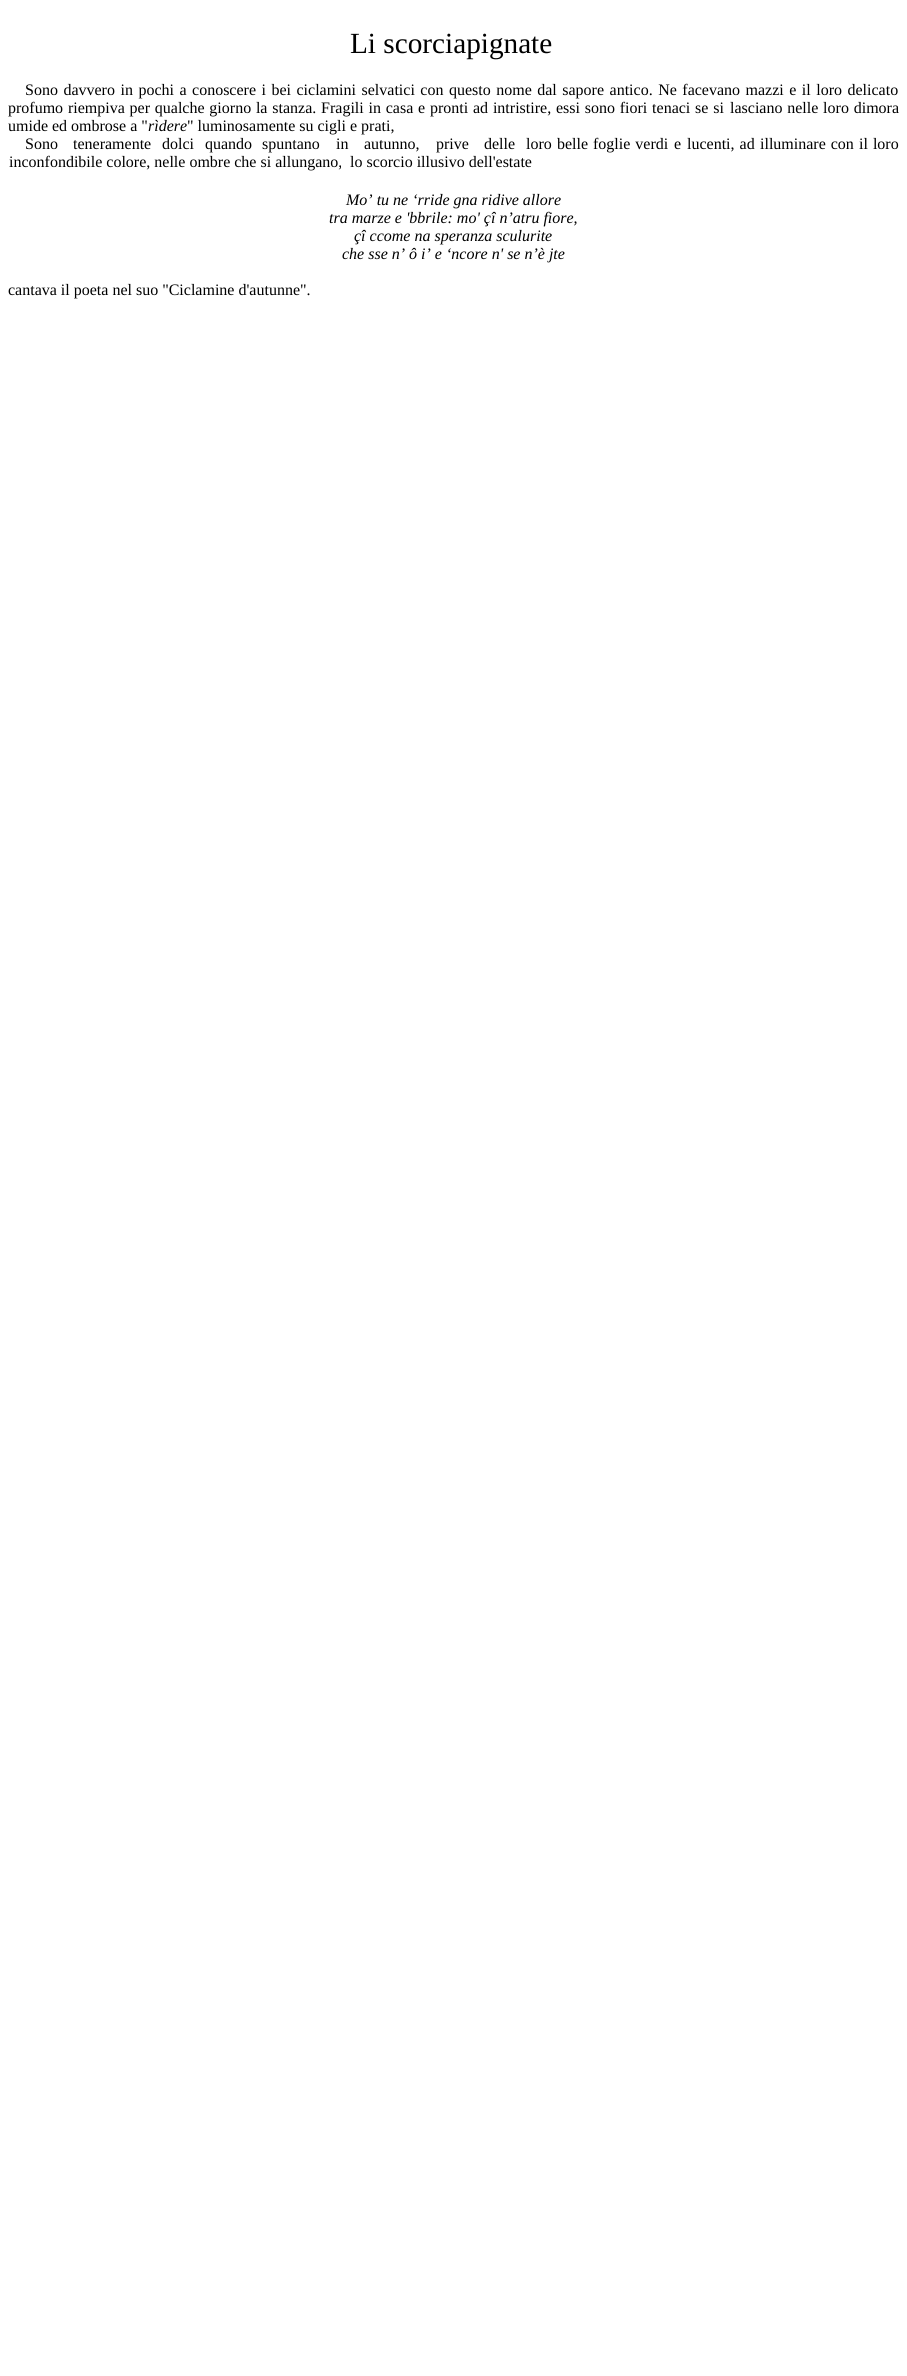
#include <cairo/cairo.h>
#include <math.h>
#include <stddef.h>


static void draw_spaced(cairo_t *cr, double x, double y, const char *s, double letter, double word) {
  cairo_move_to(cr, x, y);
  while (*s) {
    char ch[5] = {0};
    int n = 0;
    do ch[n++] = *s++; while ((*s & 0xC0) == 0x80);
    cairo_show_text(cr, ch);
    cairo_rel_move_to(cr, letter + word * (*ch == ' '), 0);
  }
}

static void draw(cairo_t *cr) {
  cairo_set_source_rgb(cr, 1, 1, 1);
  cairo_paint(cr);
  cairo_select_font_face(cr, "Liberation Serif", CAIRO_FONT_SLANT_NORMAL, CAIRO_FONT_WEIGHT_NORMAL);
  cairo_set_font_size(cr, 29.25);
  cairo_set_source_rgb(cr, 0, 0, 0);
  cairo_move_to(cr, 350, 53);
  cairo_show_text(cr, "Li scorciapignate");
  cairo_set_font_size(cr, 16);
  draw_spaced(cr, 25, 95, "Sono davvero in pochi a conoscere i bei ciclamini selvatici con questo nome dal sapore antico. Ne facevano mazzi e il loro delicato", 0, 1.5);
  draw_spaced(cr, 8, 113, "profumo riempiva per qualche giorno la stanza. Fragili in casa e pronti ad intristire, essi sono fiori tenaci se si", 0, 0.8);
  draw_spaced(cr, 730, 113, "lasciano nelle loro dimora", 0, 0.8);
  cairo_move_to(cr, 8, 131);
  cairo_show_text(cr, "umide ed ombrose a \"");
  cairo_select_font_face(cr, "Liberation Serif", CAIRO_FONT_SLANT_ITALIC, CAIRO_FONT_WEIGHT_NORMAL);
  cairo_move_to(cr, 148, 131);
  cairo_show_text(cr, "rìdere");
  cairo_select_font_face(cr, "Liberation Serif", CAIRO_FONT_SLANT_NORMAL, CAIRO_FONT_WEIGHT_NORMAL);
  cairo_move_to(cr, 187, 131);
  cairo_show_text(cr, "\" luminosamente su cigli e prati,");
  cairo_move_to(cr, 25, 149);
  cairo_show_text(cr, "Sono");
  cairo_move_to(cr, 73, 149);
  cairo_show_text(cr, "teneramente");
  cairo_move_to(cr, 162, 149);
  cairo_show_text(cr, "dolci");
  cairo_move_to(cr, 205, 149);
  cairo_show_text(cr, "quando");
  cairo_move_to(cr, 262, 149);
  cairo_show_text(cr, "spuntano");
  cairo_move_to(cr, 336, 149);
  cairo_show_text(cr, "in");
  cairo_move_to(cr, 364, 149);
  cairo_show_text(cr, "autunno,");
  cairo_move_to(cr, 436, 149);
  cairo_show_text(cr, "prive");
  cairo_move_to(cr, 484, 149);
  cairo_show_text(cr, "delle");
  cairo_move_to(cr, 526, 149);
  cairo_show_text(cr, "loro");
  cairo_move_to(cr, 557, 149);
  cairo_show_text(cr, "belle");
  draw_spaced(cr, 593, 149, "foglie verdi", 0, 1);
  cairo_move_to(cr, 674, 149);
  cairo_show_text(cr, "e");
  draw_spaced(cr, 687, 149, "lucenti, ad", 0, 1);
  draw_spaced(cr, 760, 149, "illuminare con", 0, 1);
  draw_spaced(cr, 859, 149, "il loro", 0, 1);
  cairo_move_to(cr, 9, 167);
  cairo_show_text(cr, "inconfondibile colore, nelle ombre che si allungano,");
  cairo_move_to(cr, 350, 167);
  cairo_show_text(cr, "lo scorcio illusivo dell'estate");
  cairo_select_font_face(cr, "Liberation Serif", CAIRO_FONT_SLANT_ITALIC, CAIRO_FONT_WEIGHT_NORMAL);
  cairo_move_to(cr, 346, 205);
  cairo_show_text(cr, "Mo’ tu ne ‘rride gna ridive allore");
  cairo_move_to(cr, 329, 223);
  cairo_show_text(cr, "tra marze e 'bbrile: mo' çî n’atru fiore,");
  cairo_move_to(cr, 354, 241);
  cairo_show_text(cr, "çî ccome na speranza sculurite");
  cairo_move_to(cr, 342, 259);
  cairo_show_text(cr, "che sse n’ ô i’ e ‘ncore n' se n’è jte");
  cairo_select_font_face(cr, "Liberation Serif", CAIRO_FONT_SLANT_NORMAL, CAIRO_FONT_WEIGHT_NORMAL);
  cairo_move_to(cr, 8, 295);
  cairo_show_text(cr, "cantava il poeta nel suo \"Ciclamine d'autunne\".");
}

int main(void) {
  cairo_surface_t *surface = cairo_image_surface_create(CAIRO_FORMAT_RGB24, 907, 2376);
  cairo_t *cr = cairo_create(surface);
  cairo_font_options_t *options = cairo_font_options_create();
  cairo_font_options_set_hint_metrics(options, CAIRO_HINT_METRICS_OFF);
  cairo_font_options_set_hint_style(options, CAIRO_HINT_STYLE_NONE);
  cairo_set_font_options(cr, options);
  cairo_set_miter_limit(cr, 4);
  draw(cr);
  cairo_surface_write_to_png(surface, "out.png");
  cairo_font_options_destroy(options);
  cairo_destroy(cr);
  cairo_surface_destroy(surface);
  return 0;
}
